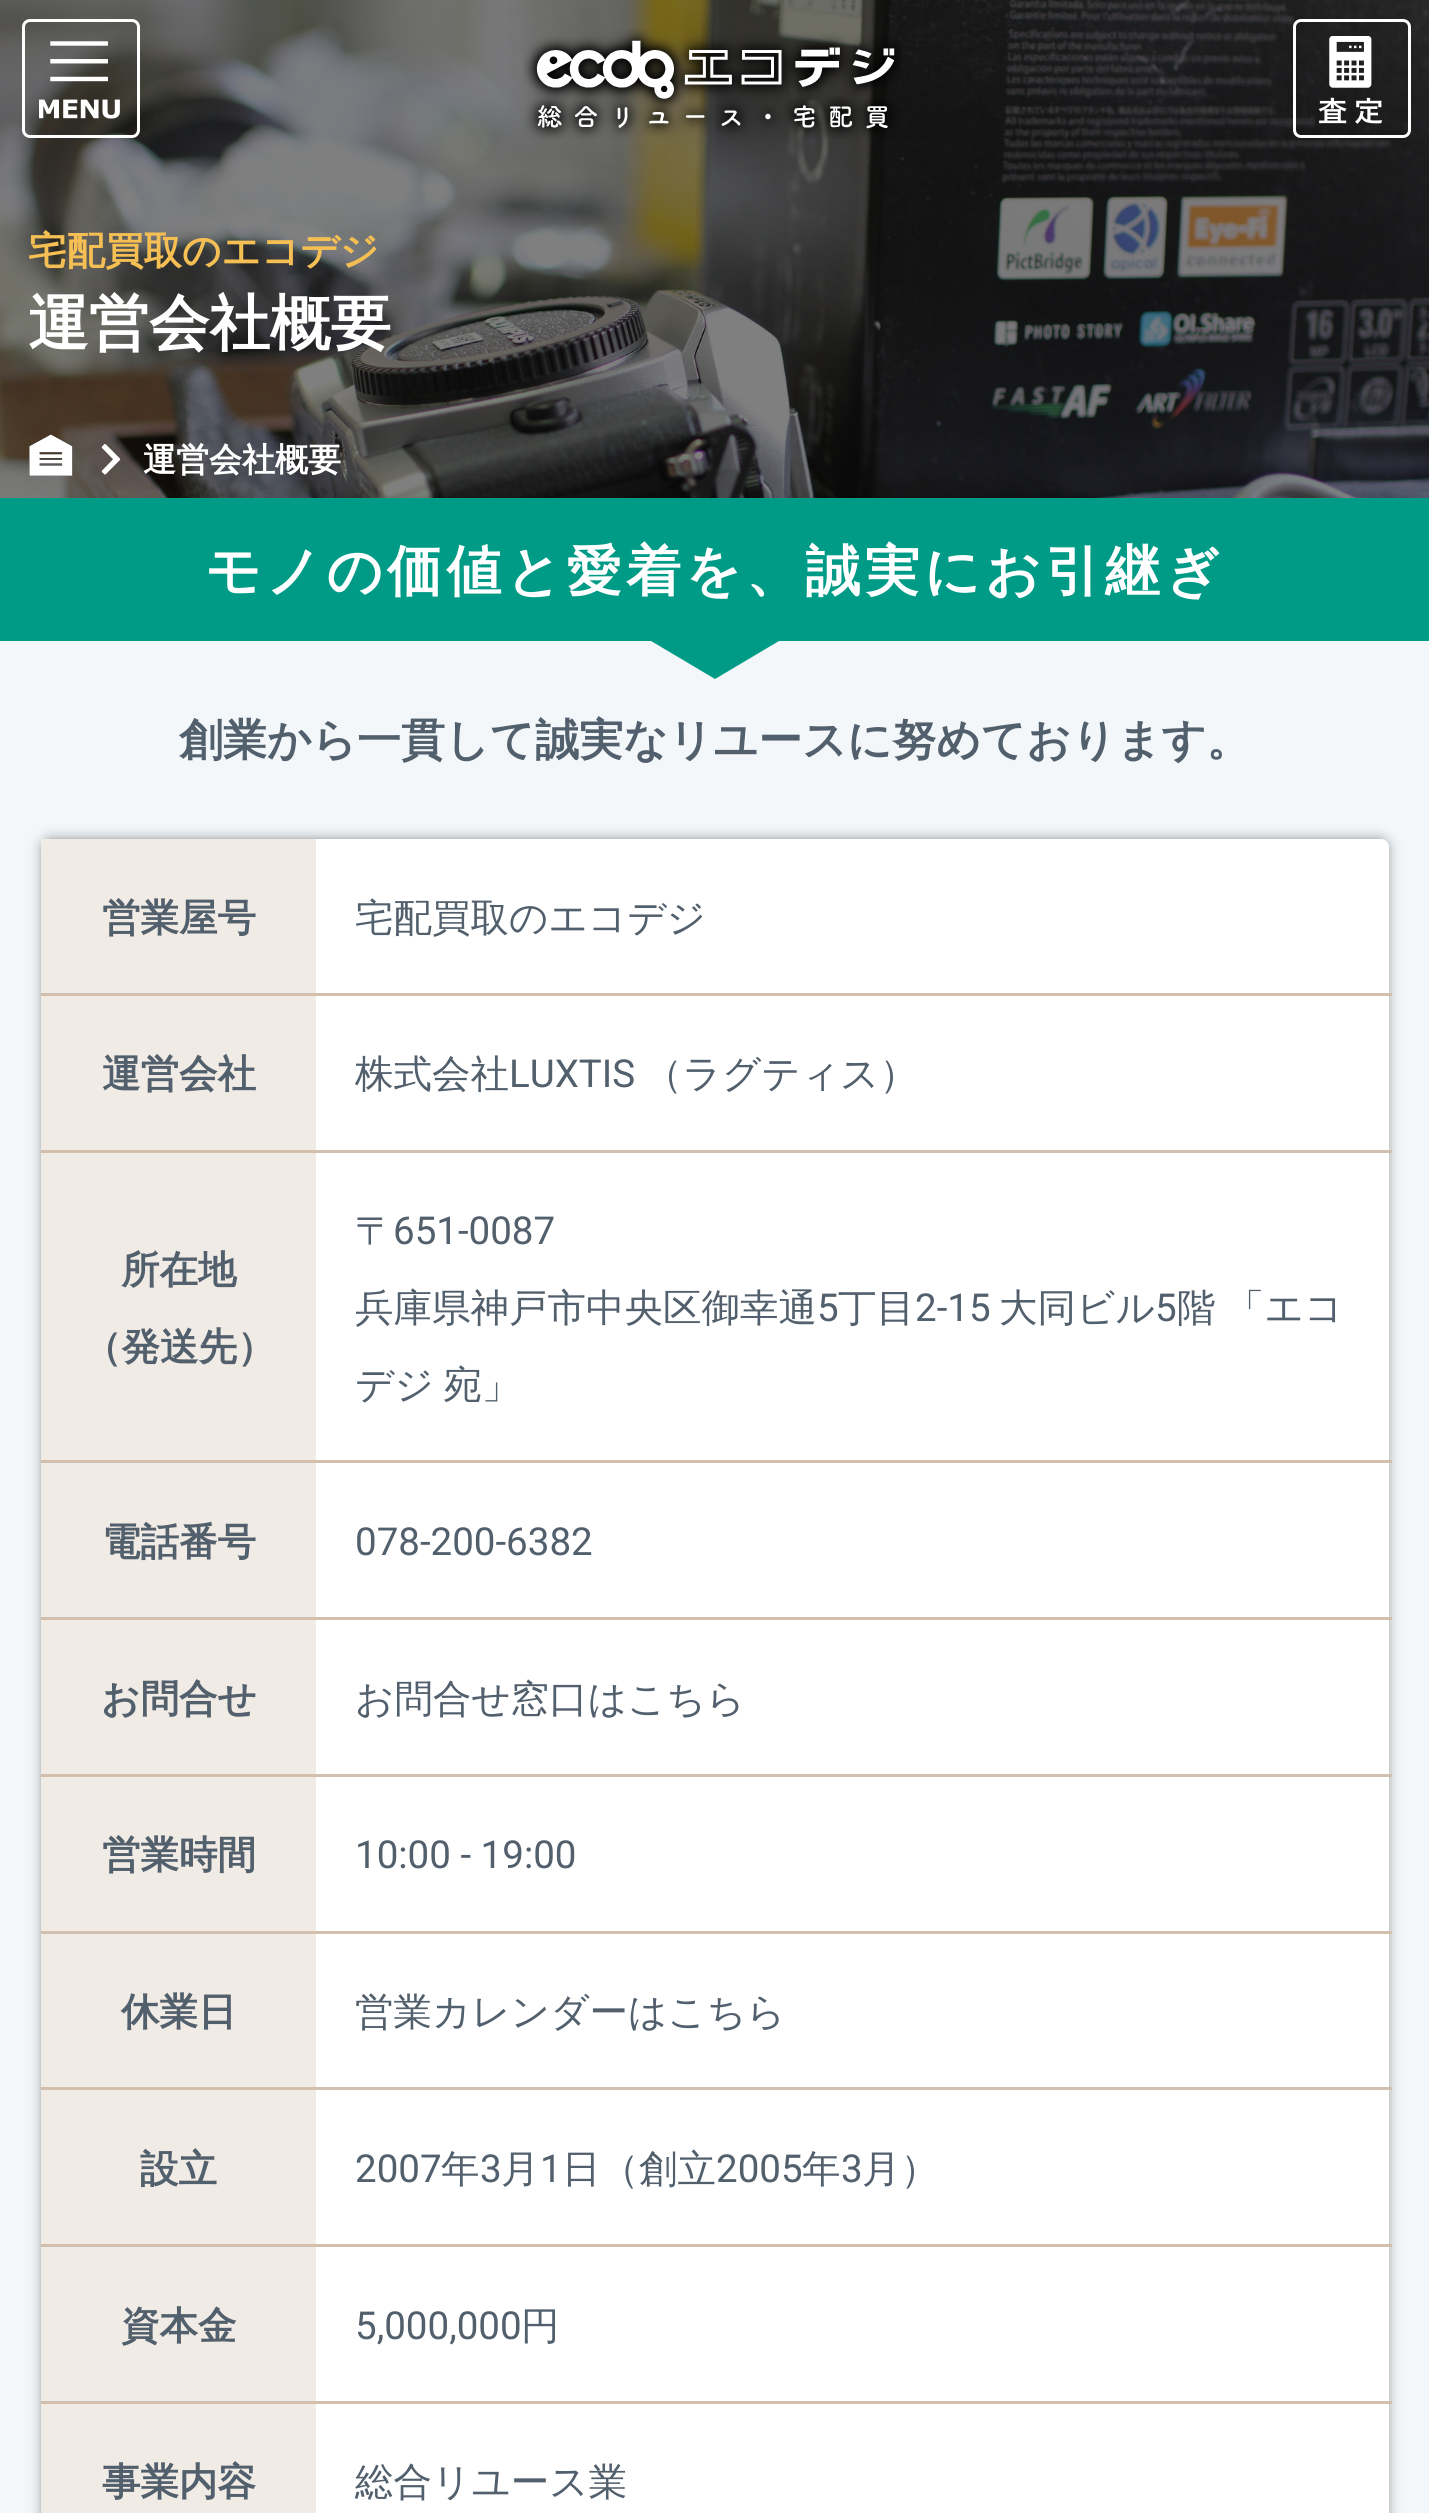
#include <cairo/cairo.h>
#include <math.h>
#include <stddef.h>


static void draw_spaced(cairo_t *cr, double x, double y, const char *s, double letter, double word) {
  cairo_move_to(cr, x, y);
  while (*s) {
    char ch[5] = {0};
    int n = 0;
    do ch[n++] = *s++; while ((*s & 0xC0) == 0x80);
    cairo_show_text(cr, ch);
    cairo_rel_move_to(cr, letter + word * (*ch == ' '), 0);
  }
}

static void rounded_rect(cairo_t *cr, double x, double y, double w, double h, double r) {
  cairo_new_sub_path(cr);
  cairo_arc(cr, x + w - r, y + h - r, r, 0, M_PI / 2);
  cairo_arc(cr, x + r, y + h - r, r, M_PI / 2, M_PI);
  cairo_arc(cr, x + r, y + r, r, M_PI, 1.5 * M_PI);
  cairo_arc(cr, x + w - r, y + r, r, 1.5 * M_PI, 2 * M_PI);
  cairo_close_path(cr);
}

static void draw_shadow(cairo_t *cr, double x, double y, double w, double h, double r, double blur, double alpha) {
  cairo_push_group_with_content(cr, CAIRO_CONTENT_ALPHA);
  cairo_set_operator(cr, CAIRO_OPERATOR_SOURCE);
  for (int i = 15; i >= -15 && fmin(w, h) + blur * i / 3 > 0; i -= 2) {
    double e = blur * i / 6;
    cairo_set_source_rgba(cr, 0, 0, 0, alpha * erfc((i - 1) / 8.5) / 2);
    rounded_rect(cr, x - e, y - e, w + 2 * e, h + 2 * e, fmax(0, fmin(r + e + blur * .6, fmin(w, h) / 2 + e)));
    cairo_fill(cr);
  }
  cairo_pattern_t *soft = cairo_pop_group(cr);
  cairo_mask(cr, soft);
  cairo_pattern_destroy(soft);
}

static void draw_image(cairo_t *cr, const char *path, double x, double y, double w, double h) {
  cairo_surface_t *image = cairo_image_surface_create_from_png(path);
  cairo_save(cr);
  cairo_set_source_surface(cr, image, x, y);
  cairo_rectangle(cr, x, y, w, h);
  cairo_fill(cr);
  cairo_restore(cr);
  cairo_surface_destroy(image);
}

static void draw(cairo_t *cr) {
  cairo_set_source_rgb(cr, 1, 1, 1);
  cairo_paint(cr);
  draw_image(cr, "images/1.png", 0, 0, 1429, 498);
  rounded_rect(cr, 23.5, 20.5, 115, 116, 6.5);
  cairo_set_source_rgb(cr, 1, 1, 1);
  cairo_set_line_width(cr, 3);
  cairo_stroke(cr);
  draw_image(cr, "images/2.png", 39, 41, 81, 78);
  draw_image(cr, "images/3.png", 523, 29, 379, 111);
  rounded_rect(cr, 1294.5, 20.5, 115, 116, 6.5);
  cairo_stroke(cr);
  draw_image(cr, "images/4.png", 1318, 36, 65, 88);
  draw_image(cr, "images/5.png", 29, 434, 44, 42);
  draw_image(cr, "images/6.png", 101, 444, 20, 31);
  cairo_set_source_rgb(cr, 243 / 255.0, 247 / 255.0, 249 / 255.0);
  cairo_rectangle(cr, 0, 641, 1429, 1872);
  cairo_fill(cr);
  cairo_set_source_rgb(cr, 0, 155 / 255.0, 135 / 255.0);
  cairo_rectangle(cr, 0, 498, 1429, 143);
  cairo_fill(cr);
  cairo_new_path(cr);
  cairo_move_to(cr, 646, 638);
  cairo_line_to(cr, 784, 638);
  cairo_line_to(cr, 715, 679);
  cairo_close_path(cr);
  cairo_fill(cr);
  cairo_set_source_rgb(cr, 51 / 255.0, 51 / 255.0, 51 / 255.0);
  draw_shadow(cr, 47, 844, 1336, 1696, 3, 8, 1);
  cairo_set_source_rgb(cr, 1, 1, 1);
  rounded_rect(cr, 41, 839, 1348, 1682, 8);
  cairo_fill(cr);
  cairo_set_source_rgb(cr, 211 / 255.0, 191 / 255.0, 174 / 255.0);
  cairo_rectangle(cr, 41, 993, 1351, 3);
  cairo_fill(cr);
  cairo_set_source_rgb(cr, 241 / 255.0, 235 / 255.0, 229 / 255.0);
  cairo_rectangle(cr, 41, 839, 275, 154);
  cairo_fill(cr);
  cairo_set_source_rgb(cr, 211 / 255.0, 191 / 255.0, 174 / 255.0);
  cairo_rectangle(cr, 41, 1150, 1351, 3);
  cairo_fill(cr);
  cairo_set_source_rgb(cr, 241 / 255.0, 235 / 255.0, 229 / 255.0);
  cairo_rectangle(cr, 41, 996, 275, 154);
  cairo_fill(cr);
  cairo_set_source_rgb(cr, 211 / 255.0, 191 / 255.0, 174 / 255.0);
  cairo_rectangle(cr, 41, 1460, 1351, 3);
  cairo_fill(cr);
  cairo_set_source_rgb(cr, 241 / 255.0, 235 / 255.0, 229 / 255.0);
  cairo_rectangle(cr, 41, 1153, 275, 307);
  cairo_fill(cr);
  cairo_set_source_rgb(cr, 211 / 255.0, 191 / 255.0, 174 / 255.0);
  cairo_rectangle(cr, 41, 1617, 1351, 3);
  cairo_fill(cr);
  cairo_set_source_rgb(cr, 241 / 255.0, 235 / 255.0, 229 / 255.0);
  cairo_rectangle(cr, 41, 1463, 275, 154);
  cairo_fill(cr);
  cairo_set_source_rgb(cr, 211 / 255.0, 191 / 255.0, 174 / 255.0);
  cairo_rectangle(cr, 41, 1774, 1351, 3);
  cairo_fill(cr);
  cairo_set_source_rgb(cr, 241 / 255.0, 235 / 255.0, 229 / 255.0);
  cairo_rectangle(cr, 41, 1620, 275, 154);
  cairo_fill(cr);
  cairo_set_source_rgb(cr, 211 / 255.0, 191 / 255.0, 174 / 255.0);
  cairo_rectangle(cr, 41, 1931, 1351, 3);
  cairo_fill(cr);
  cairo_set_source_rgb(cr, 241 / 255.0, 235 / 255.0, 229 / 255.0);
  cairo_rectangle(cr, 41, 1777, 275, 154);
  cairo_fill(cr);
  cairo_set_source_rgb(cr, 211 / 255.0, 191 / 255.0, 174 / 255.0);
  cairo_rectangle(cr, 41, 2087, 1351, 3);
  cairo_fill(cr);
  cairo_set_source_rgb(cr, 241 / 255.0, 235 / 255.0, 229 / 255.0);
  cairo_rectangle(cr, 41, 1934, 275, 153);
  cairo_fill(cr);
  cairo_set_source_rgb(cr, 211 / 255.0, 191 / 255.0, 174 / 255.0);
  cairo_rectangle(cr, 41, 2244, 1351, 3);
  cairo_fill(cr);
  cairo_set_source_rgb(cr, 241 / 255.0, 235 / 255.0, 229 / 255.0);
  cairo_rectangle(cr, 41, 2090, 275, 154);
  cairo_fill(cr);
  cairo_set_source_rgb(cr, 211 / 255.0, 191 / 255.0, 174 / 255.0);
  cairo_rectangle(cr, 41, 2401, 1351, 3);
  cairo_fill(cr);
  cairo_set_source_rgb(cr, 241 / 255.0, 235 / 255.0, 229 / 255.0);
  cairo_rectangle(cr, 41, 2247, 275, 154);
  cairo_fill(cr);
  cairo_rectangle(cr, 41, 2404, 275, 109);
  cairo_fill(cr);
  cairo_select_font_face(cr, "WenQuanYi Zen Hei", CAIRO_FONT_SLANT_NORMAL, CAIRO_FONT_WEIGHT_BOLD);
  cairo_set_font_size(cr, 38.5);
  cairo_set_source_rgb(cr, 245 / 255.0, 191 / 255.0, 84 / 255.0);
  cairo_move_to(cr, 28, 264);
  cairo_show_text(cr, "宅配買取のエコデジ");
  cairo_set_font_size(cr, 60.5);
  cairo_set_source_rgb(cr, 1, 1, 1);
  cairo_move_to(cr, 28, 344);
  cairo_show_text(cr, "運営会社概要");
  cairo_set_font_size(cr, 33);
  cairo_move_to(cr, 143, 471);
  cairo_show_text(cr, "運営会社概要");
  cairo_set_font_size(cr, 55);
  draw_spaced(cr, 205, 590, "モノの価値と愛着を、誠実にお引継ぎ", 4.4, 0);
  cairo_set_font_size(cr, 44);
  cairo_set_source_rgb(cr, 82 / 255.0, 95 / 255.0, 108 / 255.0);
  cairo_move_to(cr, 179, 755);
  cairo_show_text(cr, "創業から一貫して誠実なリユースに努めております。");
  cairo_set_font_size(cr, 38.5);
  cairo_move_to(cr, 102, 931);
  cairo_show_text(cr, "営業屋号");
  cairo_select_font_face(cr, "WenQuanYi Zen Hei Medium", CAIRO_FONT_SLANT_NORMAL, CAIRO_FONT_WEIGHT_NORMAL);
  cairo_move_to(cr, 355, 931);
  cairo_show_text(cr, "宅配買取のエコデジ");
  cairo_select_font_face(cr, "WenQuanYi Zen Hei", CAIRO_FONT_SLANT_NORMAL, CAIRO_FONT_WEIGHT_BOLD);
  cairo_move_to(cr, 102, 1087);
  cairo_show_text(cr, "運営会社");
  cairo_select_font_face(cr, "WenQuanYi Zen Hei Medium", CAIRO_FONT_SLANT_NORMAL, CAIRO_FONT_WEIGHT_NORMAL);
  cairo_move_to(cr, 355, 1087);
  cairo_show_text(cr, "株式会社");
  cairo_select_font_face(cr, "Roboto", CAIRO_FONT_SLANT_NORMAL, CAIRO_FONT_WEIGHT_NORMAL);
  cairo_move_to(cr, 509, 1087);
  cairo_show_text(cr, "LUXTIS");
  cairo_select_font_face(cr, "WenQuanYi Zen Hei Medium", CAIRO_FONT_SLANT_NORMAL, CAIRO_FONT_WEIGHT_NORMAL);
  cairo_move_to(cr, 644, 1087);
  cairo_show_text(cr, "（ラグティス）");
  cairo_select_font_face(cr, "WenQuanYi Zen Hei", CAIRO_FONT_SLANT_NORMAL, CAIRO_FONT_WEIGHT_BOLD);
  cairo_move_to(cr, 121, 1283);
  cairo_show_text(cr, "所在地");
  cairo_move_to(cr, 83, 1360);
  cairo_show_text(cr, "（発送先）");
  cairo_select_font_face(cr, "WenQuanYi Zen Hei Medium", CAIRO_FONT_SLANT_NORMAL, CAIRO_FONT_WEIGHT_NORMAL);
  cairo_move_to(cr, 355, 1244);
  cairo_show_text(cr, "〒");
  cairo_select_font_face(cr, "Roboto", CAIRO_FONT_SLANT_NORMAL, CAIRO_FONT_WEIGHT_NORMAL);
  cairo_move_to(cr, 393, 1244);
  cairo_show_text(cr, "651-0087");
  cairo_select_font_face(cr, "WenQuanYi Zen Hei Medium", CAIRO_FONT_SLANT_NORMAL, CAIRO_FONT_WEIGHT_NORMAL);
  cairo_move_to(cr, 355, 1321);
  cairo_show_text(cr, "兵庫県神戸市中央区御幸通");
  cairo_select_font_face(cr, "Roboto", CAIRO_FONT_SLANT_NORMAL, CAIRO_FONT_WEIGHT_NORMAL);
  cairo_move_to(cr, 817, 1321);
  cairo_show_text(cr, "5");
  cairo_select_font_face(cr, "WenQuanYi Zen Hei Medium", CAIRO_FONT_SLANT_NORMAL, CAIRO_FONT_WEIGHT_NORMAL);
  cairo_move_to(cr, 838, 1321);
  cairo_show_text(cr, "丁目");
  cairo_select_font_face(cr, "Roboto", CAIRO_FONT_SLANT_NORMAL, CAIRO_FONT_WEIGHT_NORMAL);
  cairo_move_to(cr, 915, 1321);
  cairo_show_text(cr, "2-15");
  cairo_select_font_face(cr, "WenQuanYi Zen Hei Medium", CAIRO_FONT_SLANT_NORMAL, CAIRO_FONT_WEIGHT_NORMAL);
  cairo_move_to(cr, 999, 1321);
  cairo_show_text(cr, "大同ビル");
  cairo_select_font_face(cr, "Roboto", CAIRO_FONT_SLANT_NORMAL, CAIRO_FONT_WEIGHT_NORMAL);
  cairo_move_to(cr, 1155, 1321);
  cairo_show_text(cr, "5");
  cairo_select_font_face(cr, "WenQuanYi Zen Hei Medium", CAIRO_FONT_SLANT_NORMAL, CAIRO_FONT_WEIGHT_NORMAL);
  draw_spaced(cr, 1177, 1321, "階 「エコ", 0, -1);
  draw_spaced(cr, 355, 1398, "デジ 宛」", 0, -2);
  cairo_select_font_face(cr, "WenQuanYi Zen Hei", CAIRO_FONT_SLANT_NORMAL, CAIRO_FONT_WEIGHT_BOLD);
  cairo_move_to(cr, 102, 1555);
  cairo_show_text(cr, "電話番号");
  cairo_select_font_face(cr, "Roboto", CAIRO_FONT_SLANT_NORMAL, CAIRO_FONT_WEIGHT_NORMAL);
  cairo_move_to(cr, 355, 1555);
  cairo_show_text(cr, "078-200-6382");
  cairo_select_font_face(cr, "WenQuanYi Zen Hei", CAIRO_FONT_SLANT_NORMAL, CAIRO_FONT_WEIGHT_BOLD);
  cairo_move_to(cr, 101, 1712);
  cairo_show_text(cr, "お問合せ");
  cairo_select_font_face(cr, "WenQuanYi Zen Hei Medium", CAIRO_FONT_SLANT_NORMAL, CAIRO_FONT_WEIGHT_NORMAL);
  cairo_move_to(cr, 355, 1712);
  cairo_show_text(cr, "お問合せ窓口はこちら");
  cairo_select_font_face(cr, "WenQuanYi Zen Hei", CAIRO_FONT_SLANT_NORMAL, CAIRO_FONT_WEIGHT_BOLD);
  cairo_move_to(cr, 102, 1868);
  cairo_show_text(cr, "営業時間");
  cairo_select_font_face(cr, "Roboto", CAIRO_FONT_SLANT_NORMAL, CAIRO_FONT_WEIGHT_NORMAL);
  cairo_move_to(cr, 355, 1868);
  cairo_show_text(cr, "10:00 - 19:00");
  cairo_select_font_face(cr, "WenQuanYi Zen Hei", CAIRO_FONT_SLANT_NORMAL, CAIRO_FONT_WEIGHT_BOLD);
  cairo_move_to(cr, 121, 2025);
  cairo_show_text(cr, "休業日");
  cairo_select_font_face(cr, "WenQuanYi Zen Hei Medium", CAIRO_FONT_SLANT_NORMAL, CAIRO_FONT_WEIGHT_NORMAL);
  cairo_move_to(cr, 355, 2025);
  cairo_show_text(cr, "営業カレンダーはこちら");
  cairo_select_font_face(cr, "WenQuanYi Zen Hei", CAIRO_FONT_SLANT_NORMAL, CAIRO_FONT_WEIGHT_BOLD);
  cairo_move_to(cr, 140, 2182);
  cairo_show_text(cr, "設立");
  cairo_select_font_face(cr, "Roboto", CAIRO_FONT_SLANT_NORMAL, CAIRO_FONT_WEIGHT_NORMAL);
  cairo_move_to(cr, 355, 2182);
  cairo_show_text(cr, "2007");
  cairo_select_font_face(cr, "WenQuanYi Zen Hei Medium", CAIRO_FONT_SLANT_NORMAL, CAIRO_FONT_WEIGHT_NORMAL);
  cairo_move_to(cr, 441, 2182);
  cairo_show_text(cr, "年");
  cairo_select_font_face(cr, "Roboto", CAIRO_FONT_SLANT_NORMAL, CAIRO_FONT_WEIGHT_NORMAL);
  cairo_move_to(cr, 480, 2182);
  cairo_show_text(cr, "3");
  cairo_select_font_face(cr, "WenQuanYi Zen Hei Medium", CAIRO_FONT_SLANT_NORMAL, CAIRO_FONT_WEIGHT_NORMAL);
  cairo_move_to(cr, 501, 2182);
  cairo_show_text(cr, "月");
  cairo_select_font_face(cr, "Roboto", CAIRO_FONT_SLANT_NORMAL, CAIRO_FONT_WEIGHT_NORMAL);
  cairo_move_to(cr, 540, 2182);
  cairo_show_text(cr, "1");
  cairo_select_font_face(cr, "WenQuanYi Zen Hei Medium", CAIRO_FONT_SLANT_NORMAL, CAIRO_FONT_WEIGHT_NORMAL);
  cairo_move_to(cr, 562, 2182);
  cairo_show_text(cr, "日（創立");
  cairo_select_font_face(cr, "Roboto", CAIRO_FONT_SLANT_NORMAL, CAIRO_FONT_WEIGHT_NORMAL);
  cairo_move_to(cr, 716, 2182);
  cairo_show_text(cr, "2005");
  cairo_select_font_face(cr, "WenQuanYi Zen Hei Medium", CAIRO_FONT_SLANT_NORMAL, CAIRO_FONT_WEIGHT_NORMAL);
  cairo_move_to(cr, 802, 2182);
  cairo_show_text(cr, "年");
  cairo_select_font_face(cr, "Roboto", CAIRO_FONT_SLANT_NORMAL, CAIRO_FONT_WEIGHT_NORMAL);
  cairo_move_to(cr, 841, 2182);
  cairo_show_text(cr, "3");
  cairo_select_font_face(cr, "WenQuanYi Zen Hei Medium", CAIRO_FONT_SLANT_NORMAL, CAIRO_FONT_WEIGHT_NORMAL);
  cairo_move_to(cr, 862, 2182);
  cairo_show_text(cr, "月）");
  cairo_select_font_face(cr, "WenQuanYi Zen Hei", CAIRO_FONT_SLANT_NORMAL, CAIRO_FONT_WEIGHT_BOLD);
  cairo_move_to(cr, 121, 2339);
  cairo_show_text(cr, "資本金");
  cairo_select_font_face(cr, "Roboto", CAIRO_FONT_SLANT_NORMAL, CAIRO_FONT_WEIGHT_NORMAL);
  cairo_move_to(cr, 355, 2339);
  cairo_show_text(cr, "5,000,000");
  cairo_select_font_face(cr, "WenQuanYi Zen Hei Medium", CAIRO_FONT_SLANT_NORMAL, CAIRO_FONT_WEIGHT_NORMAL);
  cairo_move_to(cr, 521, 2339);
  cairo_show_text(cr, "円");
  cairo_select_font_face(cr, "WenQuanYi Zen Hei", CAIRO_FONT_SLANT_NORMAL, CAIRO_FONT_WEIGHT_BOLD);
  cairo_move_to(cr, 102, 2495);
  cairo_show_text(cr, "事業内容");
  cairo_select_font_face(cr, "WenQuanYi Zen Hei Medium", CAIRO_FONT_SLANT_NORMAL, CAIRO_FONT_WEIGHT_NORMAL);
  cairo_move_to(cr, 355, 2495);
  cairo_show_text(cr, "総合リユース業");
}

int main(void) {
  cairo_surface_t *surface = cairo_image_surface_create(CAIRO_FORMAT_RGB24, 1429, 2513);
  cairo_t *cr = cairo_create(surface);
  cairo_font_options_t *options = cairo_font_options_create();
  cairo_font_options_set_hint_metrics(options, CAIRO_HINT_METRICS_OFF);
  cairo_font_options_set_hint_style(options, CAIRO_HINT_STYLE_NONE);
  cairo_set_font_options(cr, options);
  cairo_set_miter_limit(cr, 4);
  draw(cr);
  cairo_surface_write_to_png(surface, "out.png");
  cairo_font_options_destroy(options);
  cairo_destroy(cr);
  cairo_surface_destroy(surface);
  return 0;
}
